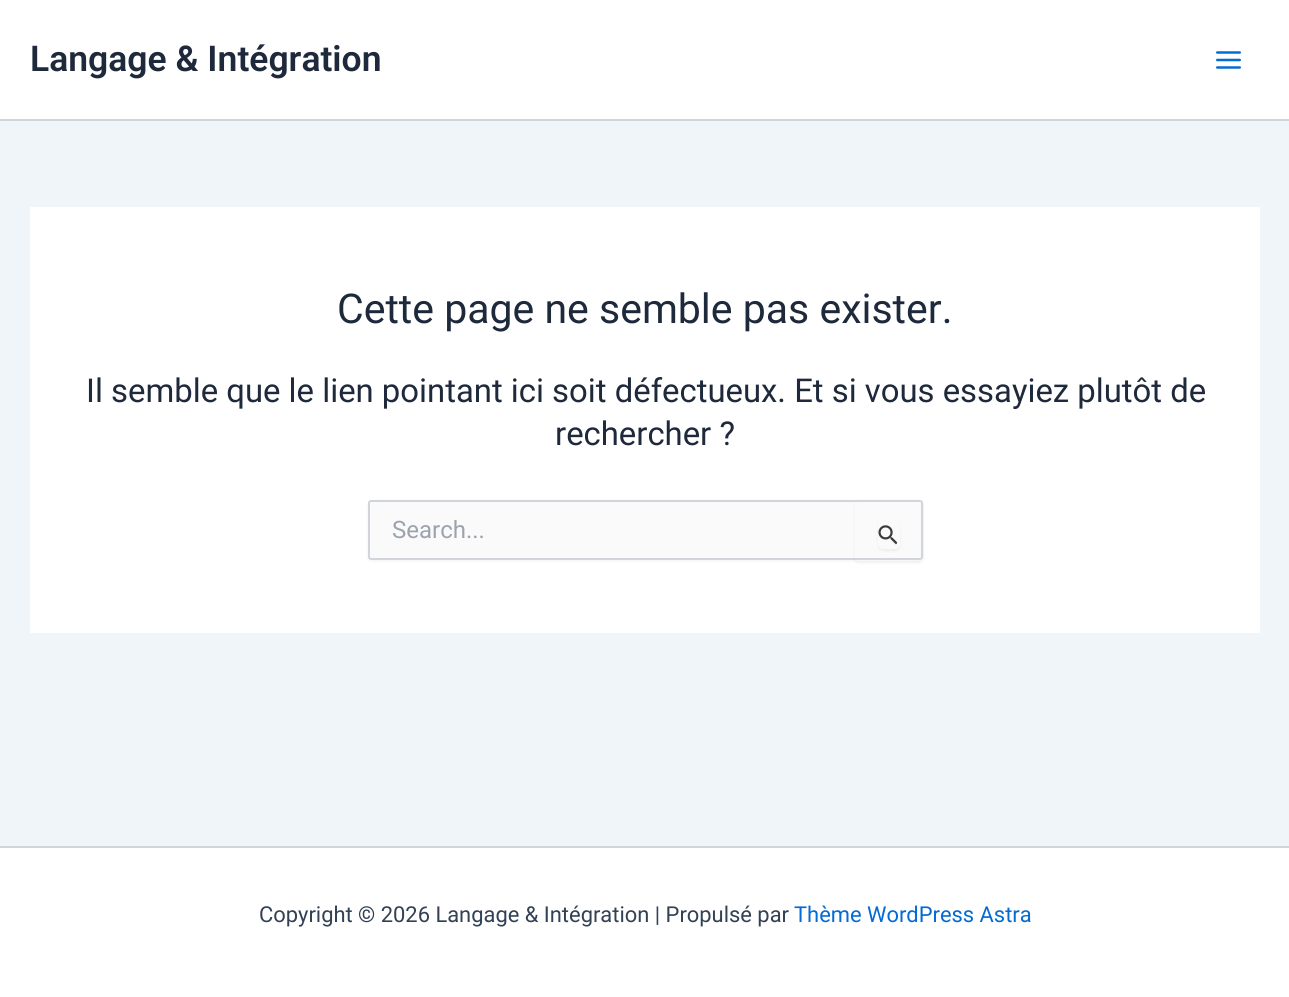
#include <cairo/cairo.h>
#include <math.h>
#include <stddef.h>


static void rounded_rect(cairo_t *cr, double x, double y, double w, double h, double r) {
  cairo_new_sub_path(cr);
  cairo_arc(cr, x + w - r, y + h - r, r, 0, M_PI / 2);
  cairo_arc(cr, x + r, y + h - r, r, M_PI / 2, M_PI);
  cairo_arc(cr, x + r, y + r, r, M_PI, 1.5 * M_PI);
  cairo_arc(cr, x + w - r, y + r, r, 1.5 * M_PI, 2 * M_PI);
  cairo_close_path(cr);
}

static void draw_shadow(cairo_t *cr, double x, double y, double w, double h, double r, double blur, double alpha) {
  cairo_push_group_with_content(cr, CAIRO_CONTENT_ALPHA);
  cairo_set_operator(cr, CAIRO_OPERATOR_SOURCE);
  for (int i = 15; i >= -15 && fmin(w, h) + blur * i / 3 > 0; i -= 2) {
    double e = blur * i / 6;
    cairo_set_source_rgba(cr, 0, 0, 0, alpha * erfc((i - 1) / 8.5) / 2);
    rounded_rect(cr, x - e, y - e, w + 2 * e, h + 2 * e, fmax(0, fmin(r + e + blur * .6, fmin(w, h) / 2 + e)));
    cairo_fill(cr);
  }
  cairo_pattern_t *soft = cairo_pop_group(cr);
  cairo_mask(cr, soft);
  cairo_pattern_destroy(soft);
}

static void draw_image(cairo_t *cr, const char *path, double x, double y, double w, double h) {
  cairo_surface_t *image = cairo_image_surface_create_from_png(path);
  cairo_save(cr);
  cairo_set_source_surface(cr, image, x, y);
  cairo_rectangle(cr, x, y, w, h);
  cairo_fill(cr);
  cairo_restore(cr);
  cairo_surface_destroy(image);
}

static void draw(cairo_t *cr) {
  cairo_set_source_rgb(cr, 240 / 255.0, 245 / 255.0, 250 / 255.0);
  cairo_paint(cr);
  cairo_set_source_rgb(cr, 1, 1, 1);
  cairo_rectangle(cr, 0, 0, 1289, 119);
  cairo_fill(cr);
  cairo_set_source_rgb(cr, 209 / 255.0, 213 / 255.0, 219 / 255.0);
  cairo_rectangle(cr, 0, 119, 1289, 2);
  cairo_fill(cr);
  draw_image(cr, "images/1.png", 1216, 51, 25, 18);
  cairo_set_source_rgb(cr, 1, 1, 1);
  cairo_rectangle(cr, 30, 207, 1230, 426);
  cairo_fill(cr);
  cairo_set_source_rgb(cr, 0, 0, 0);
  draw_shadow(cr, 368, 501, 555, 60, 3, 1.5, 0.05);
  cairo_set_source_rgb(cr, 250 / 255.0, 250 / 255.0, 250 / 255.0);
  rounded_rect(cr, 369, 501, 553, 58, 2);
  cairo_fill_preserve(cr);
  cairo_set_source_rgb(cr, 209 / 255.0, 213 / 255.0, 219 / 255.0);
  cairo_stroke(cr);
  cairo_save(cr);
  cairo_set_fill_rule(cr, CAIRO_FILL_RULE_EVEN_ODD);
  cairo_new_path(cr);
  cairo_move_to(cr, 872, 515);
  cairo_line_to(cr, 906, 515);
  cairo_line_to(cr, 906, 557);
  cairo_line_to(cr, 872, 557);
  cairo_close_path(cr);
  cairo_move_to(cr, 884, 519);
  cairo_line_to(cr, 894, 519);
  cairo_curve_to(cr, 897.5, 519, 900, 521.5, 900, 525);
  cairo_line_to(cr, 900, 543);
  cairo_curve_to(cr, 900, 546.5, 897.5, 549, 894, 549);
  cairo_line_to(cr, 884, 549);
  cairo_curve_to(cr, 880.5, 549, 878, 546.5, 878, 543);
  cairo_line_to(cr, 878, 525);
  cairo_curve_to(cr, 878, 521.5, 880.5, 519, 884, 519);
  cairo_close_path(cr);
  cairo_clip(cr);
  cairo_set_source_rgb(cr, 0, 0, 0);
  draw_shadow(cr, 878, 521, 22, 30, 6, 1.5, 0.05);
  cairo_restore(cr);
  draw_image(cr, "images/2.png", 878, 525, 19, 20);
  cairo_save(cr);
  cairo_set_fill_rule(cr, CAIRO_FILL_RULE_EVEN_ODD);
  cairo_new_path(cr);
  cairo_move_to(cr, 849, 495);
  cairo_line_to(cr, 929, 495);
  cairo_line_to(cr, 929, 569);
  cairo_line_to(cr, 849, 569);
  cairo_close_path(cr);
  cairo_move_to(cr, 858, 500);
  cairo_line_to(cr, 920, 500);
  cairo_curve_to(cr, 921.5, 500, 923, 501.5, 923, 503);
  cairo_line_to(cr, 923, 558);
  cairo_curve_to(cr, 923, 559.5, 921.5, 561, 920, 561);
  cairo_line_to(cr, 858, 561);
  cairo_curve_to(cr, 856.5, 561, 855, 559.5, 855, 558);
  cairo_line_to(cr, 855, 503);
  cairo_curve_to(cr, 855, 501.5, 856.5, 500, 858, 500);
  cairo_close_path(cr);
  cairo_clip(cr);
  cairo_set_source_rgb(cr, 0, 0, 0);
  draw_shadow(cr, 855, 501, 68, 62, 3, 1.5, 0.05);
  cairo_restore(cr);
  cairo_set_source_rgb(cr, 1, 1, 1);
  cairo_rectangle(cr, 0, 848, 1289, 149);
  cairo_fill(cr);
  cairo_set_source_rgb(cr, 209 / 255.0, 213 / 255.0, 219 / 255.0);
  cairo_rectangle(cr, 0, 846, 1289, 2);
  cairo_fill(cr);
  cairo_select_font_face(cr, "Roboto SemiBold", CAIRO_FONT_SLANT_NORMAL, CAIRO_FONT_WEIGHT_NORMAL);
  cairo_set_font_size(cr, 35.5);
  cairo_set_source_rgb(cr, 30 / 255.0, 41 / 255.0, 59 / 255.0);
  cairo_move_to(cr, 30, 71);
  cairo_show_text(cr, "Langage & Intégration");
  cairo_select_font_face(cr, "Roboto", CAIRO_FONT_SLANT_NORMAL, CAIRO_FONT_WEIGHT_NORMAL);
  cairo_set_font_size(cr, 41);
  cairo_move_to(cr, 337, 323);
  cairo_show_text(cr, "Cette page ne semble pas exister.");
  cairo_set_font_size(cr, 32.85);
  cairo_move_to(cr, 86, 402);
  cairo_show_text(cr, "Il semble que le lien pointant ici soit défectueux. Et si vous essayiez plutôt de");
  cairo_move_to(cr, 555, 445);
  cairo_show_text(cr, "rechercher ?");
  cairo_set_font_size(cr, 24);
  cairo_set_source_rgb(cr, 156 / 255.0, 163 / 255.0, 175 / 255.0);
  cairo_move_to(cr, 392, 538);
  cairo_show_text(cr, "Search...");
  cairo_set_font_size(cr, 21.9);
  cairo_set_source_rgb(cr, 51 / 255.0, 65 / 255.0, 85 / 255.0);
  cairo_move_to(cr, 259, 922);
  cairo_show_text(cr, "Copyright © 2026 Langage & Intégration | Propulsé par");
  cairo_set_source_rgb(cr, 4 / 255.0, 107 / 255.0, 210 / 255.0);
  cairo_move_to(cr, 794, 922);
  cairo_show_text(cr, "Thème WordPress Astra");
}

int main(void) {
  cairo_surface_t *surface = cairo_image_surface_create(CAIRO_FORMAT_RGB24, 1289, 997);
  cairo_t *cr = cairo_create(surface);
  cairo_font_options_t *options = cairo_font_options_create();
  cairo_font_options_set_hint_metrics(options, CAIRO_HINT_METRICS_OFF);
  cairo_font_options_set_hint_style(options, CAIRO_HINT_STYLE_NONE);
  cairo_set_font_options(cr, options);
  cairo_set_miter_limit(cr, 4);
  draw(cr);
  cairo_surface_write_to_png(surface, "out.png");
  cairo_font_options_destroy(options);
  cairo_destroy(cr);
  cairo_surface_destroy(surface);
  return 0;
}
